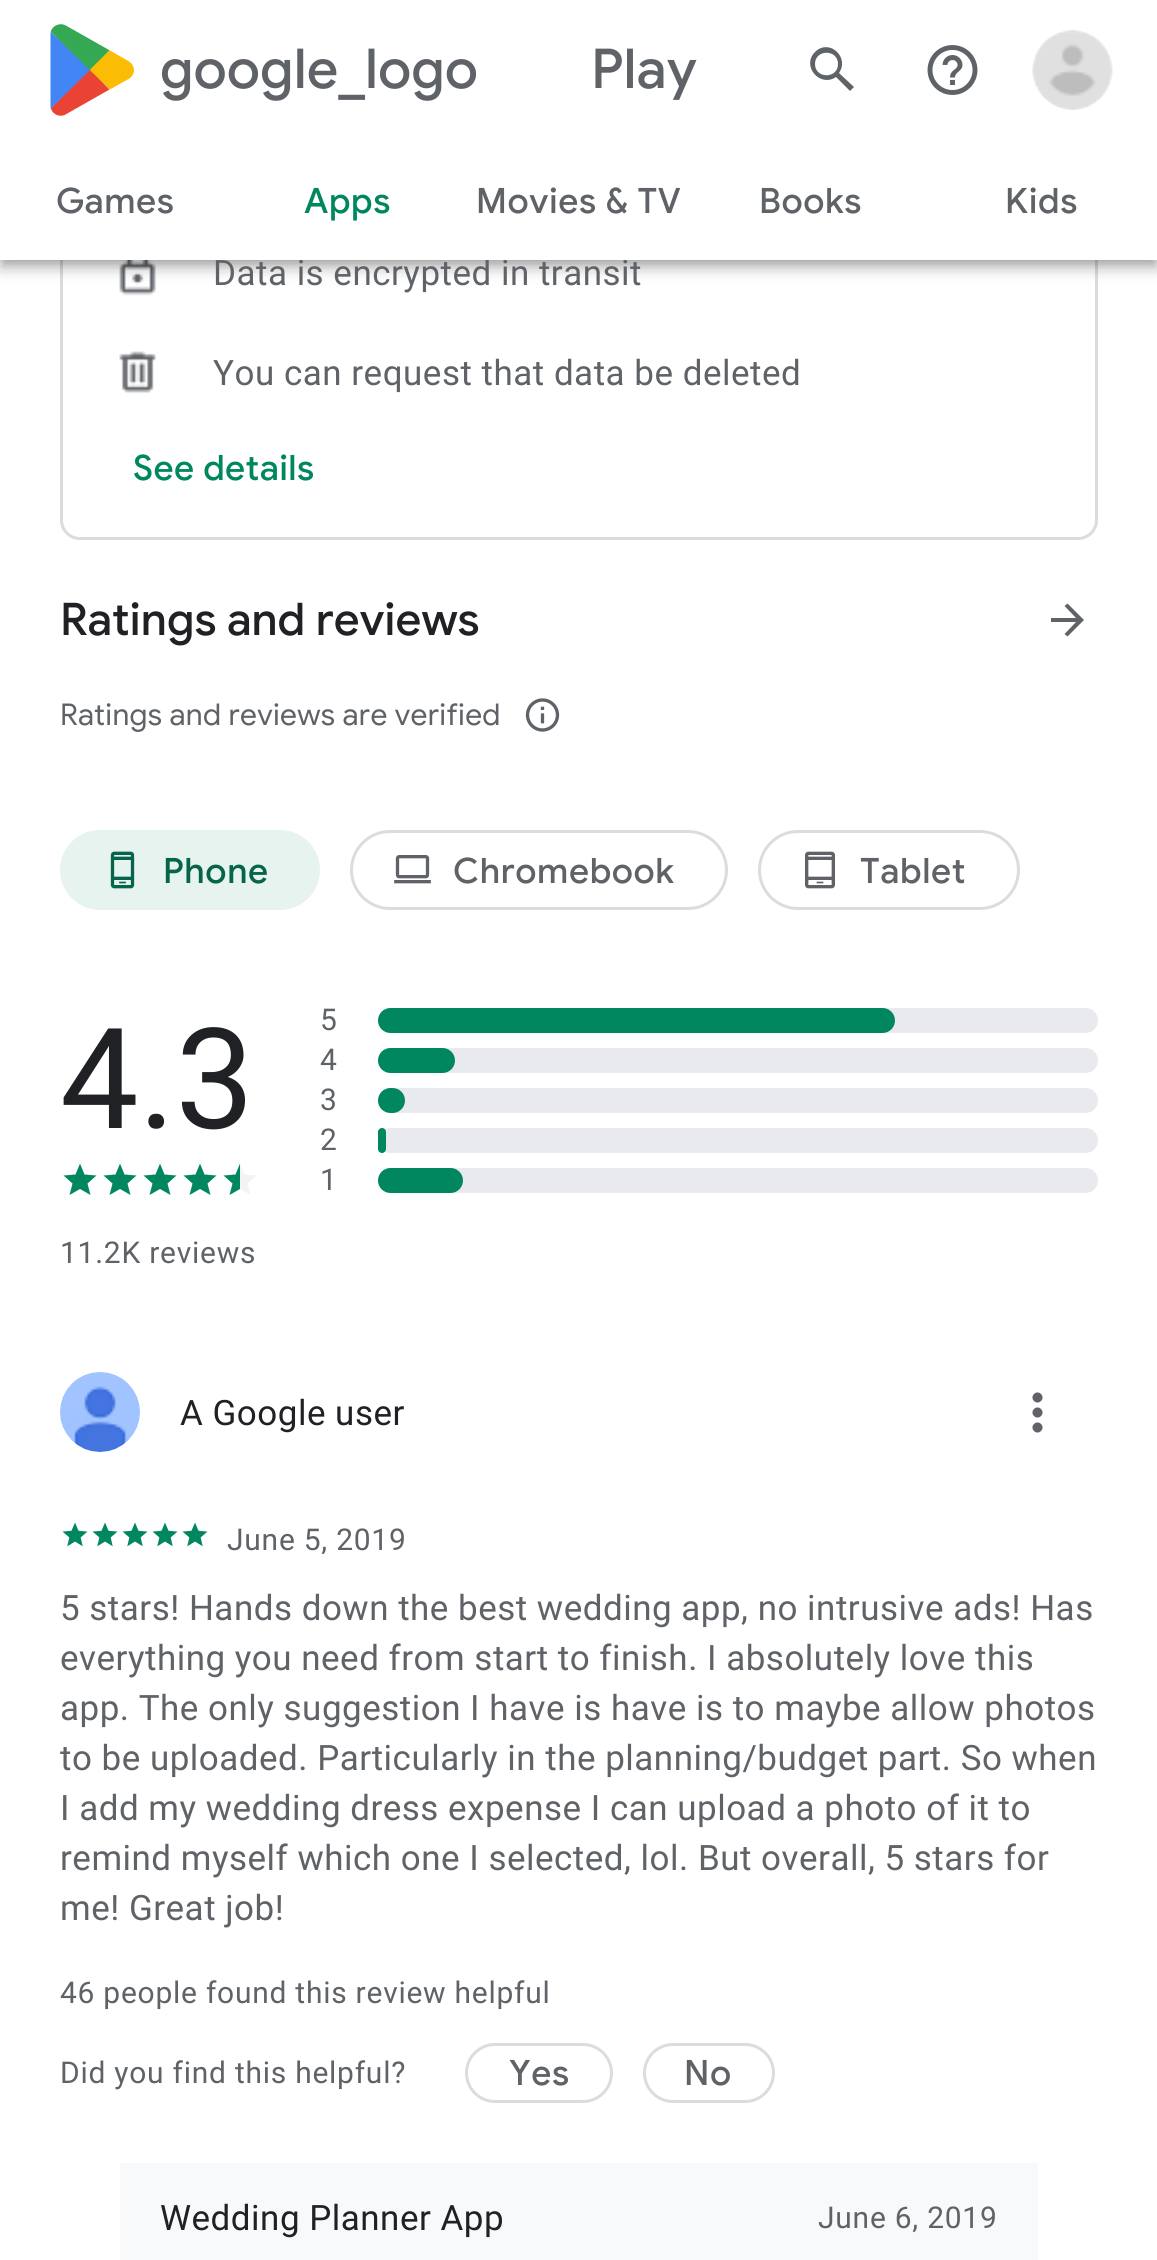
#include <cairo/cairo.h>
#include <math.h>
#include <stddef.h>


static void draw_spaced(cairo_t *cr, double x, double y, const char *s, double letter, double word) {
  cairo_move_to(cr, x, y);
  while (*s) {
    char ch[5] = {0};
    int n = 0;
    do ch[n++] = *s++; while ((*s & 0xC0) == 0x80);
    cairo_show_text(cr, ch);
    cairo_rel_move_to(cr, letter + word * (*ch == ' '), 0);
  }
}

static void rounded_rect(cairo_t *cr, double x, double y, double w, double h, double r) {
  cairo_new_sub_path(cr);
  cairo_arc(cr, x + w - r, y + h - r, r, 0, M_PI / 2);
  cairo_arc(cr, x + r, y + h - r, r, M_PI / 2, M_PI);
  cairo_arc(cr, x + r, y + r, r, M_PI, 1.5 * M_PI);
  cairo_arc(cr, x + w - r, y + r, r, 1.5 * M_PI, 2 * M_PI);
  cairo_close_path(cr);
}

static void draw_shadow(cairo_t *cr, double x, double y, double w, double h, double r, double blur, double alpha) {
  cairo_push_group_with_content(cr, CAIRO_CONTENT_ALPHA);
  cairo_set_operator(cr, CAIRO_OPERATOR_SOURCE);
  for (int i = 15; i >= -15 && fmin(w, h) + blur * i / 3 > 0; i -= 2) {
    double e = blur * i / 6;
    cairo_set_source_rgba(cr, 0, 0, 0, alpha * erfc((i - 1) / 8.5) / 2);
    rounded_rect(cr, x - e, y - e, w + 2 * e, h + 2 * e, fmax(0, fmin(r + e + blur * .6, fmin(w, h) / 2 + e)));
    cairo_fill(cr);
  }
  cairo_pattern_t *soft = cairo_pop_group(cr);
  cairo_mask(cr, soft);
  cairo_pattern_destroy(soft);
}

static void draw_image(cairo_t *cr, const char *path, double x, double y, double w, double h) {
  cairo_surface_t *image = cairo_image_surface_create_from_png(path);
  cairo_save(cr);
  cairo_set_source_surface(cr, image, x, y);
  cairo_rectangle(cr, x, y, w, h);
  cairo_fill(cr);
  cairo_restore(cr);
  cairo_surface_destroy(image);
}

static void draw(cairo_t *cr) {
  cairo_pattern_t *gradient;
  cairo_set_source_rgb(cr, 1, 1, 1);
  cairo_paint(cr);
  rounded_rect(cr, 61.5, -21.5, 1035, 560, 18.5);
  cairo_set_source_rgb(cr, 218 / 255.0, 220 / 255.0, 224 / 255.0);
  cairo_set_line_width(cr, 3);
  cairo_stroke(cr);
  draw_image(cr, "images/4.png", 119, 260, 37, 36);
  cairo_set_source_rgb(cr, 0, 0, 0);
  draw_shadow(cr, 3, 8, 1152, 255, 0, 5, 0.2);
  draw_shadow(cr, 0, 3, 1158, 260, 0, 12.5, 0.12);
  draw_shadow(cr, 0, 10, 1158, 260, 0, 6, 0.14);
  draw_image(cr, "images/5.png", 119, 351, 37, 42);
  draw_image(cr, "images/6.png", 525, 698, 35, 34);
  cairo_set_source_rgb(cr, 95 / 255.0, 99 / 255.0, 104 / 255.0);
  cairo_new_path(cr);
  cairo_move_to(cr, 1067.5, 603.5);
  cairo_line_to(cr, 1064.5, 606);
  cairo_line_to(cr, 1076, 618);
  cairo_line_to(cr, 1051, 618);
  cairo_line_to(cr, 1051, 622);
  cairo_line_to(cr, 1076, 622);
  cairo_line_to(cr, 1064.5, 634);
  cairo_line_to(cr, 1067.5, 636.5);
  cairo_line_to(cr, 1084, 620);
  cairo_close_path(cr);
  cairo_fill(cr);
  cairo_set_source_rgb(cr, 230 / 255.0, 243 / 255.0, 239 / 255.0);
  rounded_rect(cr, 60, 830, 260, 80, 40);
  cairo_fill(cr);
  draw_image(cr, "images/7.png", 110, 851, 25, 38);
  rounded_rect(cr, 351.5, 831.5, 375, 77, 38.5);
  cairo_set_source_rgb(cr, 218 / 255.0, 220 / 255.0, 224 / 255.0);
  cairo_stroke(cr);
  draw_image(cr, "images/8.png", 394, 855, 37, 29);
  rounded_rect(cr, 759.5, 831.5, 259, 77, 38.5);
  cairo_stroke(cr);
  draw_image(cr, "images/9.png", 805, 851, 30, 38);
  cairo_set_source_rgb(cr, 1 / 255.0, 135 / 255.0, 95 / 255.0);
  cairo_new_path(cr);
  cairo_move_to(cr, 80, 1189);
  cairo_line_to(cr, 90.5, 1195);
  cairo_line_to(cr, 87.5, 1183.5);
  cairo_line_to(cr, 96.5, 1175.5);
  cairo_line_to(cr, 84.5, 1174.5);
  cairo_line_to(cr, 80, 1163.5);
  cairo_line_to(cr, 75.5, 1174.5);
  cairo_line_to(cr, 63.5, 1175.5);
  cairo_line_to(cr, 72.5, 1183.5);
  cairo_line_to(cr, 69.5, 1195);
  cairo_close_path(cr);
  cairo_fill(cr);
  cairo_new_path(cr);
  cairo_move_to(cr, 120, 1189);
  cairo_line_to(cr, 130.5, 1195);
  cairo_line_to(cr, 127.5, 1183.5);
  cairo_line_to(cr, 136.5, 1175.5);
  cairo_line_to(cr, 124.5, 1174.5);
  cairo_line_to(cr, 120, 1163.5);
  cairo_line_to(cr, 115.5, 1174.5);
  cairo_line_to(cr, 103.5, 1175.5);
  cairo_line_to(cr, 112.5, 1183.5);
  cairo_line_to(cr, 109.5, 1195);
  cairo_close_path(cr);
  cairo_fill(cr);
  cairo_new_path(cr);
  cairo_move_to(cr, 160, 1189);
  cairo_line_to(cr, 170.5, 1195);
  cairo_line_to(cr, 167.5, 1183.5);
  cairo_line_to(cr, 176.5, 1175.5);
  cairo_line_to(cr, 164.5, 1174.5);
  cairo_line_to(cr, 160, 1163.5);
  cairo_line_to(cr, 155.5, 1174.5);
  cairo_line_to(cr, 143.5, 1175.5);
  cairo_line_to(cr, 152.5, 1183.5);
  cairo_line_to(cr, 149.5, 1195);
  cairo_close_path(cr);
  cairo_fill(cr);
  cairo_new_path(cr);
  cairo_move_to(cr, 200, 1189);
  cairo_line_to(cr, 210.5, 1195);
  cairo_line_to(cr, 207.5, 1183.5);
  cairo_line_to(cr, 216.5, 1175.5);
  cairo_line_to(cr, 204.5, 1174.5);
  cairo_line_to(cr, 200, 1163.5);
  cairo_line_to(cr, 195.5, 1174.5);
  cairo_line_to(cr, 183.5, 1175.5);
  cairo_line_to(cr, 192.5, 1183.5);
  cairo_line_to(cr, 189.5, 1195);
  cairo_close_path(cr);
  cairo_fill(cr);
  gradient = cairo_pattern_create_linear(223, 1163, 257, 1163);
  cairo_pattern_add_color_stop_rgba(gradient, 0.5, 1 / 255.0, 135 / 255.0, 95 / 255.0, 1);
  cairo_pattern_add_color_stop_rgba(gradient, 0.5, 241 / 255.0, 243 / 255.0, 244 / 255.0, 1);
  cairo_set_source(cr, gradient);
  cairo_pattern_destroy(gradient);
  cairo_new_path(cr);
  cairo_move_to(cr, 240, 1189);
  cairo_line_to(cr, 250.5, 1195);
  cairo_line_to(cr, 247.5, 1183.5);
  cairo_line_to(cr, 256.5, 1175.5);
  cairo_line_to(cr, 244.5, 1174.5);
  cairo_line_to(cr, 240, 1163.5);
  cairo_line_to(cr, 235.5, 1174.5);
  cairo_line_to(cr, 223.5, 1175.5);
  cairo_line_to(cr, 232.5, 1183.5);
  cairo_line_to(cr, 229.5, 1195);
  cairo_close_path(cr);
  cairo_fill(cr);
  cairo_set_source_rgb(cr, 232 / 255.0, 234 / 255.0, 237 / 255.0);
  rounded_rect(cr, 378, 1008, 720, 25, 12.5);
  cairo_fill(cr);
  cairo_set_source_rgb(cr, 1 / 255.0, 135 / 255.0, 95 / 255.0);
  rounded_rect(cr, 378, 1008, 517, 25, 12.5);
  cairo_fill(cr);
  cairo_set_source_rgb(cr, 232 / 255.0, 234 / 255.0, 237 / 255.0);
  rounded_rect(cr, 378, 1048, 720, 25, 12.5);
  cairo_fill(cr);
  cairo_set_source_rgb(cr, 1 / 255.0, 135 / 255.0, 95 / 255.0);
  rounded_rect(cr, 378, 1048, 77, 25, 12.5);
  cairo_fill(cr);
  cairo_set_source_rgb(cr, 232 / 255.0, 234 / 255.0, 237 / 255.0);
  rounded_rect(cr, 378, 1088, 720, 25, 12.5);
  cairo_fill(cr);
  cairo_set_source_rgb(cr, 1 / 255.0, 135 / 255.0, 95 / 255.0);
  rounded_rect(cr, 378, 1088, 27, 25, 12.5);
  cairo_fill(cr);
  cairo_set_source_rgb(cr, 232 / 255.0, 234 / 255.0, 237 / 255.0);
  rounded_rect(cr, 378, 1128, 720, 25, 12.5);
  cairo_fill(cr);
  cairo_set_source_rgb(cr, 1 / 255.0, 135 / 255.0, 95 / 255.0);
  rounded_rect(cr, 378, 1128, 8, 25, 4);
  cairo_fill(cr);
  cairo_set_source_rgb(cr, 232 / 255.0, 234 / 255.0, 237 / 255.0);
  rounded_rect(cr, 378, 1168, 720, 25, 12.5);
  cairo_fill(cr);
  cairo_set_source_rgb(cr, 1 / 255.0, 135 / 255.0, 95 / 255.0);
  rounded_rect(cr, 378, 1168, 85, 25, 12.5);
  cairo_fill(cr);
  draw_image(cr, "images/10.png", 60, 1372, 80, 80);
  draw_image(cr, "images/11.png", 1032, 1392, 11, 41);
  draw_image(cr, "images/12.png", 62, 1522, 26, 25);
  draw_image(cr, "images/12.png", 92, 1522, 26, 25);
  draw_image(cr, "images/12.png", 122, 1522, 26, 25);
  draw_image(cr, "images/12.png", 152, 1522, 26, 25);
  draw_image(cr, "images/12.png", 182, 1522, 26, 25);
  rounded_rect(cr, 466.5, 2044.5, 145, 57, 28.5);
  cairo_set_source_rgb(cr, 218 / 255.0, 220 / 255.0, 224 / 255.0);
  cairo_stroke(cr);
  rounded_rect(cr, 644.5, 2044.5, 129, 57, 28.5);
  cairo_stroke(cr);
  cairo_set_source_rgb(cr, 248 / 255.0, 249 / 255.0, 250 / 255.0);
  cairo_rectangle(cr, 120, 2163, 918, 97);
  cairo_fill(cr);
  cairo_select_font_face(cr, "Roboto", CAIRO_FONT_SLANT_NORMAL, CAIRO_FONT_WEIGHT_NORMAL);
  cairo_set_font_size(cr, 35);
  cairo_set_source_rgb(cr, 95 / 255.0, 99 / 255.0, 104 / 255.0);
  draw_spaced(cr, 213, 285, "Data is encrypted in transit", 0.5, 0);
  cairo_set_source_rgb(cr, 1, 1, 1);
  cairo_rectangle(cr, 0, 0, 1157, 260);
  cairo_fill(cr);
  draw_image(cr, "images/1.png", 50, 24, 84, 92);
  cairo_select_font_face(cr, "Google Sans Medium", CAIRO_FONT_SLANT_NORMAL, CAIRO_FONT_WEIGHT_NORMAL);
  cairo_set_font_size(cr, 55);
  cairo_set_source_rgb(cr, 95 / 255.0, 99 / 255.0, 104 / 255.0);
  draw_spaced(cr, 160, 88, "google_logo", 0, 138);
  draw_spaced(cr, 591, 88, "Play", 0, 138);
  draw_image(cr, "images/3.png", 1032, 30, 81, 80);
  draw_image(cr, "images/2.png", 927, 45, 51, 50);
  cairo_new_path(cr);
  cairo_move_to(cr, 854, 87);
  cairo_line_to(cr, 839, 73);
  cairo_curve_to(cr, 850, 57, 829, 38, 815, 52);
  cairo_curve_to(cr, 801, 66, 820, 88, 836, 77);
  cairo_line_to(cr, 850, 91);
  cairo_close_path(cr);
  cairo_move_to(cr, 815, 64);
  cairo_curve_to(cr, 815, 49, 838, 49, 838, 64);
  cairo_curve_to(cr, 838, 79, 815, 79, 815, 64);
  cairo_close_path(cr);
  cairo_fill(cr);
  cairo_set_font_size(cr, 35);
  draw_spaced(cr, 1005, 213, "Kids", 0.6, 0);
  draw_spaced(cr, 759, 213, "Books", 0.6, 0);
  draw_spaced(cr, 476, 213, "Movies & TV", 0.6, 0);
  cairo_set_source_rgb(cr, 1 / 255.0, 135 / 255.0, 95 / 255.0);
  draw_spaced(cr, 304, 213, "Apps", 0.6, 0);
  cairo_set_source_rgb(cr, 95 / 255.0, 99 / 255.0, 104 / 255.0);
  draw_spaced(cr, 56, 213, "Games", 0.6, 0);
  cairo_select_font_face(cr, "Roboto", CAIRO_FONT_SLANT_NORMAL, CAIRO_FONT_WEIGHT_NORMAL);
  draw_spaced(cr, 213, 385, "You can request that data be deleted", 0.5, 0);
  cairo_select_font_face(cr, "Google Sans Medium", CAIRO_FONT_SLANT_NORMAL, CAIRO_FONT_WEIGHT_NORMAL);
  cairo_set_source_rgb(cr, 1 / 255.0, 135 / 255.0, 95 / 255.0);
  draw_spaced(cr, 133, 480, "See details", 0.4, 0);
  cairo_set_font_size(cr, 45);
  cairo_set_source_rgb(cr, 32 / 255.0, 33 / 255.0, 36 / 255.0);
  cairo_move_to(cr, 60, 635);
  cairo_show_text(cr, "Ratings and reviews");
  cairo_select_font_face(cr, "Google Sans", CAIRO_FONT_SLANT_NORMAL, CAIRO_FONT_WEIGHT_NORMAL);
  cairo_set_font_size(cr, 30);
  cairo_set_source_rgb(cr, 95 / 255.0, 99 / 255.0, 104 / 255.0);
  draw_spaced(cr, 60, 725, "Ratings and reviews are verified", 0.3, 0);
  cairo_select_font_face(cr, "Google Sans Medium", CAIRO_FONT_SLANT_NORMAL, CAIRO_FONT_WEIGHT_NORMAL);
  cairo_set_font_size(cr, 35);
  cairo_set_source_rgb(cr, 5 / 255.0, 100 / 255.0, 73 / 255.0);
  draw_spaced(cr, 163, 883, "Phone", 0.6, 0);
  cairo_set_source_rgb(cr, 95 / 255.0, 99 / 255.0, 104 / 255.0);
  draw_spaced(cr, 453, 883, "Chromebook", 0.6, 0);
  draw_spaced(cr, 860, 883, "Tablet", 0.6, 0);
  cairo_select_font_face(cr, "Roboto", CAIRO_FONT_SLANT_NORMAL, CAIRO_FONT_WEIGHT_NORMAL);
  cairo_set_font_size(cr, 140);
  cairo_set_source_rgb(cr, 32 / 255.0, 33 / 255.0, 36 / 255.0);
  cairo_move_to(cr, 60, 1128);
  cairo_show_text(cr, "4.3");
  cairo_set_font_size(cr, 30);
  cairo_set_source_rgb(cr, 95 / 255.0, 99 / 255.0, 104 / 255.0);
  draw_spaced(cr, 60, 1263, "11.2K reviews", 0.75, 0);
  draw_spaced(cr, 320, 1030, "5", 0.75, 0);
  draw_spaced(cr, 320, 1070, "4", 0.75, 0);
  draw_spaced(cr, 320, 1110, "3", 0.75, 0);
  draw_spaced(cr, 320, 1150, "2", 0.75, 0);
  draw_spaced(cr, 320, 1190, "1", 0.75, 0);
  cairo_set_font_size(cr, 35);
  cairo_set_source_rgb(cr, 32 / 255.0, 33 / 255.0, 36 / 255.0);
  draw_spaced(cr, 180, 1425, "A Google user", 0.5, 0);
  cairo_set_font_size(cr, 30);
  cairo_set_source_rgb(cr, 95 / 255.0, 99 / 255.0, 104 / 255.0);
  draw_spaced(cr, 227, 1550, "June 5, 2019", 0.75, 0);
  cairo_set_font_size(cr, 35);
  draw_spaced(cr, 60, 1620, "5 stars! Hands down the best wedding app, no intrusive ads! Has", 0.5, 0);
  draw_spaced(cr, 60, 1670, "everything you need from start to finish. I absolutely love this", 0.5, 0);
  draw_spaced(cr, 60, 1720, "app. The only suggestion I have is have is to maybe allow photos", 0.5, 0);
  draw_spaced(cr, 60, 1770, "to be uploaded. Particularly in the planning/budget part. So when", 0.5, 0);
  draw_spaced(cr, 60, 1820, "I add my wedding dress expense I can upload a photo of it to", 0.5, 0);
  draw_spaced(cr, 60, 1870, "remind myself which one I selected, lol. But overall, 5 stars for", 0.5, 0);
  draw_spaced(cr, 60, 1920, "me! Great job!", 0.5, 0);
  cairo_set_font_size(cr, 30);
  draw_spaced(cr, 60, 2003, "46 people found this review helpful", 0.75, 0);
  draw_spaced(cr, 60, 2083, "Did you find this helpful?", 0.75, 0);
  cairo_select_font_face(cr, "Google Sans Medium", CAIRO_FONT_SLANT_NORMAL, CAIRO_FONT_WEIGHT_NORMAL);
  cairo_set_font_size(cr, 35);
  draw_spaced(cr, 509, 2085, "Yes", 0.6, 0);
  draw_spaced(cr, 684, 2085, "No", 0.6, 0);
  cairo_select_font_face(cr, "Roboto", CAIRO_FONT_SLANT_NORMAL, CAIRO_FONT_WEIGHT_NORMAL);
  cairo_set_source_rgb(cr, 32 / 255.0, 33 / 255.0, 36 / 255.0);
  draw_spaced(cr, 160, 2230, "Wedding Planner App", 0.5, 0);
  cairo_set_font_size(cr, 30);
  cairo_set_source_rgb(cr, 95 / 255.0, 99 / 255.0, 104 / 255.0);
  draw_spaced(cr, 818, 2228, "June 6, 2019", 0.75, 0);
}

int main(void) {
  cairo_surface_t *surface = cairo_image_surface_create(CAIRO_FORMAT_RGB24, 1157, 2260);
  cairo_t *cr = cairo_create(surface);
  cairo_font_options_t *options = cairo_font_options_create();
  cairo_font_options_set_hint_metrics(options, CAIRO_HINT_METRICS_OFF);
  cairo_font_options_set_hint_style(options, CAIRO_HINT_STYLE_NONE);
  cairo_set_font_options(cr, options);
  cairo_set_miter_limit(cr, 4);
  draw(cr);
  cairo_surface_write_to_png(surface, "out.png");
  cairo_font_options_destroy(options);
  cairo_destroy(cr);
  cairo_surface_destroy(surface);
  return 0;
}
